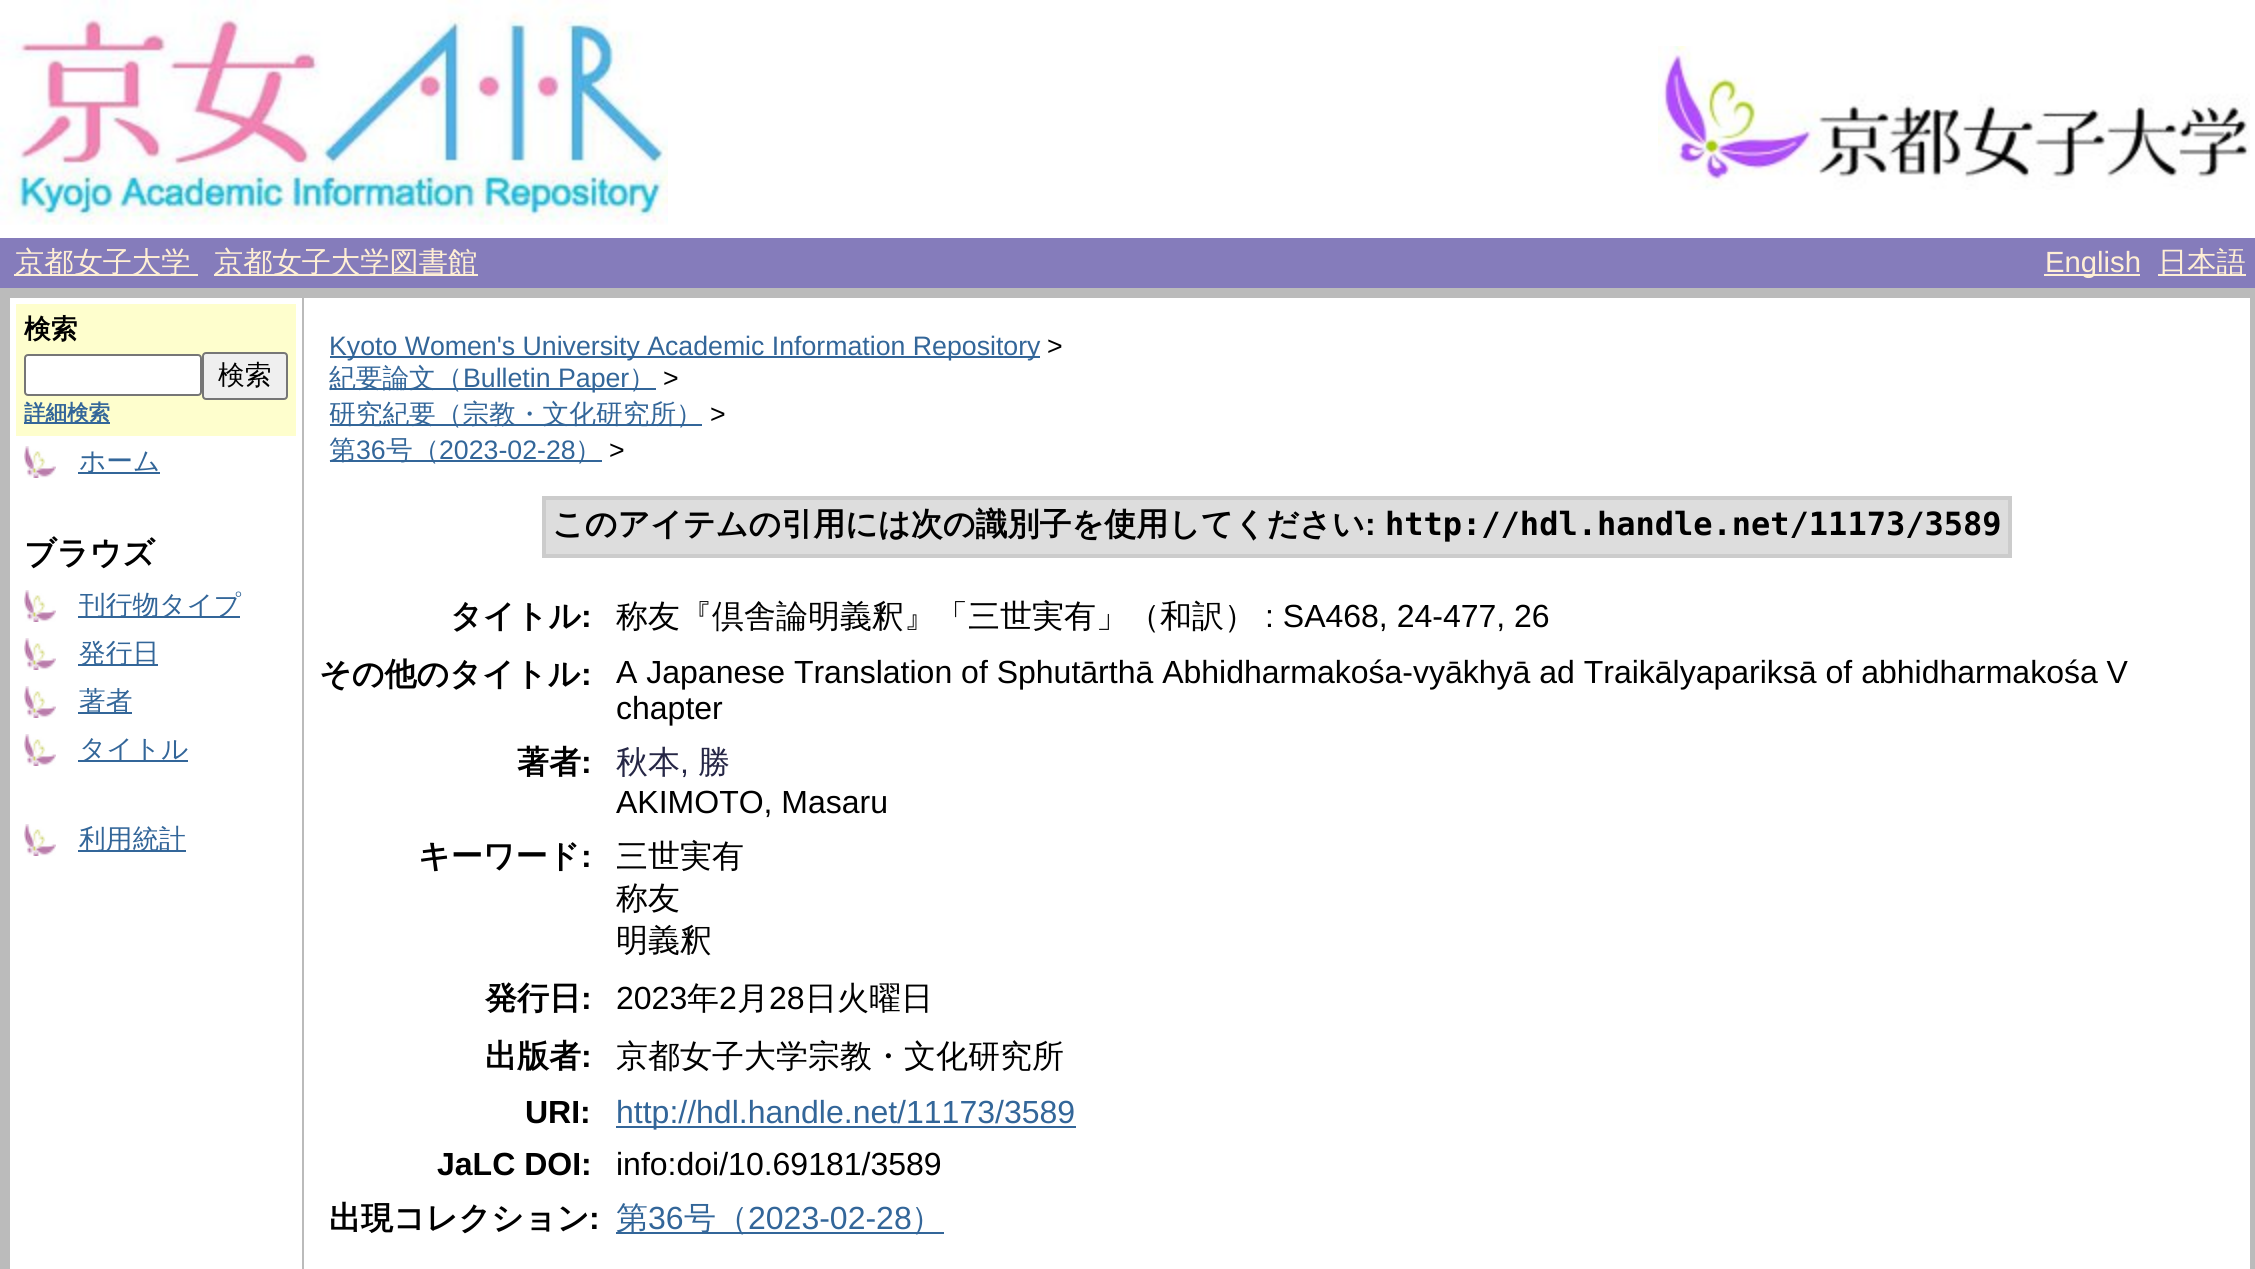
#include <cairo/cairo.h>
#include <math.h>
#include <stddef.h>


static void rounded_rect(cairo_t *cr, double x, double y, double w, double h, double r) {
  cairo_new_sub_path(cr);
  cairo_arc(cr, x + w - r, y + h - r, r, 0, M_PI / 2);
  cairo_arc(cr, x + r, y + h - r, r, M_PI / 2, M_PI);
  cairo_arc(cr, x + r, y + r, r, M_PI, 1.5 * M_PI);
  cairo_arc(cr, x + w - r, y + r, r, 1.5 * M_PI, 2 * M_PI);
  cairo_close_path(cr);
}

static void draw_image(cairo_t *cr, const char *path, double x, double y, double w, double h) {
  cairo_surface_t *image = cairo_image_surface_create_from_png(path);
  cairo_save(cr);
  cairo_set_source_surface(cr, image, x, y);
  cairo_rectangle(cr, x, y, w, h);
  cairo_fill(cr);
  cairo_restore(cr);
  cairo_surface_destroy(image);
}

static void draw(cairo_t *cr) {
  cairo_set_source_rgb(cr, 187 / 255.0, 187 / 255.0, 187 / 255.0);
  cairo_paint(cr);
  cairo_set_source_rgb(cr, 1, 1, 1);
  cairo_rectangle(cr, 0, 0, 2255, 238);
  cairo_fill(cr);
  draw_image(cr, "images/1.png", 0, 0, 668, 225);
  draw_image(cr, "images/2.png", 1658, 46, 592, 144);
  cairo_set_source_rgb(cr, 133 / 255.0, 124 / 255.0, 187 / 255.0);
  cairo_rectangle(cr, 0, 238, 2255, 50);
  cairo_fill(cr);
  cairo_set_source_rgb(cr, 1, 239 / 255.0, 213 / 255.0);
  cairo_rectangle(cr, 14, 274, 184, 2);
  cairo_fill(cr);
  cairo_rectangle(cr, 214, 274, 264, 2);
  cairo_fill(cr);
  cairo_rectangle(cr, 2044, 274, 96, 2);
  cairo_fill(cr);
  cairo_rectangle(cr, 2158, 274, 88, 2);
  cairo_fill(cr);
  cairo_set_source_rgb(cr, 1, 1, 1);
  cairo_rectangle(cr, 10, 298, 292, 971);
  cairo_fill(cr);
  cairo_set_source_rgb(cr, 254 / 255.0, 254 / 255.0, 205 / 255.0);
  cairo_rectangle(cr, 16, 304, 280, 132);
  cairo_fill(cr);
  cairo_set_source_rgb(cr, 1, 1, 1);
  rounded_rect(cr, 25, 355, 176, 40, 3);
  cairo_fill_preserve(cr);
  cairo_set_source_rgb(cr, 118 / 255.0, 118 / 255.0, 118 / 255.0);
  cairo_stroke(cr);
  cairo_set_source_rgb(cr, 239 / 255.0, 239 / 255.0, 239 / 255.0);
  rounded_rect(cr, 203, 353, 84, 46, 3);
  cairo_fill_preserve(cr);
  cairo_set_source_rgb(cr, 118 / 255.0, 118 / 255.0, 118 / 255.0);
  cairo_stroke(cr);
  cairo_set_source_rgb(cr, 51 / 255.0, 102 / 255.0, 153 / 255.0);
  cairo_rectangle(cr, 24, 422, 86, 2);
  cairo_fill(cr);
  draw_image(cr, "images/3.png", 24, 446, 32, 32);
  cairo_rectangle(cr, 78, 472, 82, 2);
  cairo_fill(cr);
  draw_image(cr, "images/3.png", 24, 590, 32, 32);
  cairo_rectangle(cr, 78, 616, 162, 2);
  cairo_fill(cr);
  draw_image(cr, "images/3.png", 24, 638, 32, 32);
  cairo_rectangle(cr, 78, 664, 80, 2);
  cairo_fill(cr);
  draw_image(cr, "images/3.png", 24, 686, 32, 32);
  cairo_rectangle(cr, 78, 712, 54, 2);
  cairo_fill(cr);
  draw_image(cr, "images/3.png", 24, 734, 32, 32);
  cairo_rectangle(cr, 78, 760, 110, 2);
  cairo_fill(cr);
  draw_image(cr, "images/3.png", 24, 824, 32, 32);
  cairo_rectangle(cr, 78, 850, 108, 2);
  cairo_fill(cr);
  cairo_set_source_rgb(cr, 1, 1, 1);
  cairo_rectangle(cr, 304, 298, 1946, 971);
  cairo_fill(cr);
  cairo_set_source_rgb(cr, 51 / 255.0, 102 / 255.0, 153 / 255.0);
  cairo_rectangle(cr, 330, 356, 710, 2);
  cairo_fill(cr);
  cairo_rectangle(cr, 330, 388, 326, 2);
  cairo_fill(cr);
  cairo_rectangle(cr, 330, 424, 372, 2);
  cairo_fill(cr);
  cairo_rectangle(cr, 330, 460, 272, 2);
  cairo_fill(cr);
  cairo_set_source_rgb(cr, 204 / 255.0, 204 / 255.0, 204 / 255.0);
  cairo_rectangle(cr, 542, 496, 1470, 62);
  cairo_fill(cr);
  cairo_set_source_rgb(cr, 221 / 255.0, 221 / 255.0, 221 / 255.0);
  cairo_rectangle(cr, 546, 500, 1462, 54);
  cairo_fill(cr);
  cairo_set_source_rgb(cr, 51 / 255.0, 102 / 255.0, 153 / 255.0);
  cairo_rectangle(cr, 616, 1126, 460, 2);
  cairo_fill(cr);
  cairo_rectangle(cr, 616, 1232, 328, 2);
  cairo_fill(cr);
  cairo_select_font_face(cr, "WenQuanYi Zen Hei Medium", CAIRO_FONT_SLANT_NORMAL, CAIRO_FONT_WEIGHT_NORMAL);
  cairo_set_font_size(cr, 29.25);
  cairo_set_source_rgb(cr, 1, 239 / 255.0, 213 / 255.0);
  cairo_move_to(cr, 15, 272);
  cairo_show_text(cr, "京都女子大学");
  cairo_move_to(cr, 214, 272);
  cairo_show_text(cr, "京都女子大学図書館");
  cairo_select_font_face(cr, "Liberation Sans", CAIRO_FONT_SLANT_NORMAL, CAIRO_FONT_WEIGHT_NORMAL);
  cairo_move_to(cr, 2045, 272);
  cairo_show_text(cr, "English");
  cairo_select_font_face(cr, "WenQuanYi Zen Hei Medium", CAIRO_FONT_SLANT_NORMAL, CAIRO_FONT_WEIGHT_NORMAL);
  cairo_move_to(cr, 2158, 272);
  cairo_show_text(cr, "日本語");
  cairo_select_font_face(cr, "WenQuanYi Zen Hei", CAIRO_FONT_SLANT_NORMAL, CAIRO_FONT_WEIGHT_BOLD);
  cairo_set_font_size(cr, 26.7);
  cairo_set_source_rgb(cr, 0, 0, 0);
  cairo_move_to(cr, 24, 338);
  cairo_show_text(cr, "検索");
  cairo_select_font_face(cr, "WenQuanYi Zen Hei Medium", CAIRO_FONT_SLANT_NORMAL, CAIRO_FONT_WEIGHT_NORMAL);
  cairo_move_to(cr, 218, 384);
  cairo_show_text(cr, "検索");
  cairo_select_font_face(cr, "WenQuanYi Zen Hei", CAIRO_FONT_SLANT_NORMAL, CAIRO_FONT_WEIGHT_BOLD);
  cairo_set_font_size(cr, 21.5);
  cairo_set_source_rgb(cr, 51 / 255.0, 102 / 255.0, 153 / 255.0);
  cairo_move_to(cr, 24, 420);
  cairo_show_text(cr, "詳細検索");
  cairo_select_font_face(cr, "WenQuanYi Zen Hei Medium", CAIRO_FONT_SLANT_NORMAL, CAIRO_FONT_WEIGHT_NORMAL);
  cairo_set_font_size(cr, 26.7);
  cairo_move_to(cr, 79, 470);
  cairo_show_text(cr, "ホーム");
  cairo_select_font_face(cr, "WenQuanYi Zen Hei", CAIRO_FONT_SLANT_NORMAL, CAIRO_FONT_WEIGHT_BOLD);
  cairo_set_font_size(cr, 32);
  cairo_set_source_rgb(cr, 0, 0, 0);
  cairo_move_to(cr, 24, 564);
  cairo_show_text(cr, "ブラウズ");
  cairo_select_font_face(cr, "WenQuanYi Zen Hei Medium", CAIRO_FONT_SLANT_NORMAL, CAIRO_FONT_WEIGHT_NORMAL);
  cairo_set_font_size(cr, 26.7);
  cairo_set_source_rgb(cr, 51 / 255.0, 102 / 255.0, 153 / 255.0);
  cairo_move_to(cr, 79, 614);
  cairo_show_text(cr, "刊行物タイプ");
  cairo_move_to(cr, 79, 662);
  cairo_show_text(cr, "発行日");
  cairo_move_to(cr, 79, 710);
  cairo_show_text(cr, "著者");
  cairo_move_to(cr, 79, 758);
  cairo_show_text(cr, "タイトル");
  cairo_move_to(cr, 79, 848);
  cairo_show_text(cr, "利用統計");
  cairo_select_font_face(cr, "Liberation Sans", CAIRO_FONT_SLANT_NORMAL, CAIRO_FONT_WEIGHT_NORMAL);
  cairo_move_to(cr, 329, 355);
  cairo_show_text(cr, "Kyoto Women's University Academic Information Repository");
  cairo_set_source_rgb(cr, 0, 0, 0);
  cairo_move_to(cr, 1047, 355);
  cairo_show_text(cr, ">");
  cairo_select_font_face(cr, "WenQuanYi Zen Hei Medium", CAIRO_FONT_SLANT_NORMAL, CAIRO_FONT_WEIGHT_NORMAL);
  cairo_set_source_rgb(cr, 51 / 255.0, 102 / 255.0, 153 / 255.0);
  cairo_move_to(cr, 329, 387);
  cairo_show_text(cr, "紀要論文（");
  cairo_select_font_face(cr, "Liberation Sans", CAIRO_FONT_SLANT_NORMAL, CAIRO_FONT_WEIGHT_NORMAL);
  cairo_move_to(cr, 463, 387);
  cairo_show_text(cr, "Bulletin Paper");
  cairo_select_font_face(cr, "WenQuanYi Zen Hei Medium", CAIRO_FONT_SLANT_NORMAL, CAIRO_FONT_WEIGHT_NORMAL);
  cairo_move_to(cr, 629, 387);
  cairo_show_text(cr, "）");
  cairo_select_font_face(cr, "Liberation Sans", CAIRO_FONT_SLANT_NORMAL, CAIRO_FONT_WEIGHT_NORMAL);
  cairo_set_source_rgb(cr, 0, 0, 0);
  cairo_move_to(cr, 663, 387);
  cairo_show_text(cr, ">");
  cairo_select_font_face(cr, "WenQuanYi Zen Hei Medium", CAIRO_FONT_SLANT_NORMAL, CAIRO_FONT_WEIGHT_NORMAL);
  cairo_set_source_rgb(cr, 51 / 255.0, 102 / 255.0, 153 / 255.0);
  cairo_move_to(cr, 329, 423);
  cairo_show_text(cr, "研究紀要（宗教・文化研究所）");
  cairo_select_font_face(cr, "Liberation Sans", CAIRO_FONT_SLANT_NORMAL, CAIRO_FONT_WEIGHT_NORMAL);
  cairo_set_source_rgb(cr, 0, 0, 0);
  cairo_move_to(cr, 710, 423);
  cairo_show_text(cr, ">");
  cairo_select_font_face(cr, "WenQuanYi Zen Hei Medium", CAIRO_FONT_SLANT_NORMAL, CAIRO_FONT_WEIGHT_NORMAL);
  cairo_set_source_rgb(cr, 51 / 255.0, 102 / 255.0, 153 / 255.0);
  cairo_move_to(cr, 329, 459);
  cairo_show_text(cr, "第");
  cairo_select_font_face(cr, "Liberation Sans", CAIRO_FONT_SLANT_NORMAL, CAIRO_FONT_WEIGHT_NORMAL);
  cairo_move_to(cr, 356, 459);
  cairo_show_text(cr, "36");
  cairo_select_font_face(cr, "WenQuanYi Zen Hei Medium", CAIRO_FONT_SLANT_NORMAL, CAIRO_FONT_WEIGHT_NORMAL);
  cairo_move_to(cr, 386, 459);
  cairo_show_text(cr, "号（");
  cairo_select_font_face(cr, "Liberation Sans", CAIRO_FONT_SLANT_NORMAL, CAIRO_FONT_WEIGHT_NORMAL);
  cairo_move_to(cr, 439, 459);
  cairo_show_text(cr, "2023-02-28");
  cairo_select_font_face(cr, "WenQuanYi Zen Hei Medium", CAIRO_FONT_SLANT_NORMAL, CAIRO_FONT_WEIGHT_NORMAL);
  cairo_move_to(cr, 575, 459);
  cairo_show_text(cr, "）");
  cairo_select_font_face(cr, "Liberation Sans", CAIRO_FONT_SLANT_NORMAL, CAIRO_FONT_WEIGHT_NORMAL);
  cairo_set_source_rgb(cr, 0, 0, 0);
  cairo_move_to(cr, 609, 459);
  cairo_show_text(cr, ">");
  cairo_select_font_face(cr, "WenQuanYi Zen Hei", CAIRO_FONT_SLANT_NORMAL, CAIRO_FONT_WEIGHT_BOLD);
  cairo_set_font_size(cr, 32);
  cairo_move_to(cr, 552, 535);
  cairo_show_text(cr, "このアイテムの引用には次の識別子を使用してください");
  cairo_select_font_face(cr, "Liberation Sans", CAIRO_FONT_SLANT_NORMAL, CAIRO_FONT_WEIGHT_BOLD);
  cairo_move_to(cr, 1365, 535);
  cairo_show_text(cr, ":");
  cairo_select_font_face(cr, "DejaVu Sans Mono", CAIRO_FONT_SLANT_NORMAL, CAIRO_FONT_WEIGHT_BOLD);
  cairo_move_to(cr, 1385, 535);
  cairo_show_text(cr, "http://hdl.handle.net/11173/3589");
  cairo_select_font_face(cr, "WenQuanYi Zen Hei", CAIRO_FONT_SLANT_NORMAL, CAIRO_FONT_WEIGHT_BOLD);
  cairo_move_to(cr, 450, 627);
  cairo_show_text(cr, "タイトル");
  cairo_select_font_face(cr, "Liberation Sans", CAIRO_FONT_SLANT_NORMAL, CAIRO_FONT_WEIGHT_BOLD);
  cairo_move_to(cr, 581, 627);
  cairo_show_text(cr, ":");
  cairo_select_font_face(cr, "WenQuanYi Zen Hei Medium", CAIRO_FONT_SLANT_NORMAL, CAIRO_FONT_WEIGHT_NORMAL);
  cairo_move_to(cr, 616, 627);
  cairo_show_text(cr, "称友『倶舎論明義釈』「三世実有」（和訳）");
  cairo_select_font_face(cr, "Liberation Sans", CAIRO_FONT_SLANT_NORMAL, CAIRO_FONT_WEIGHT_NORMAL);
  cairo_move_to(cr, 1265, 627);
  cairo_show_text(cr, ": SA468, 24-477, 26");
  cairo_select_font_face(cr, "WenQuanYi Zen Hei", CAIRO_FONT_SLANT_NORMAL, CAIRO_FONT_WEIGHT_BOLD);
  cairo_move_to(cr, 319, 685);
  cairo_show_text(cr, "その他のタイトル");
  cairo_select_font_face(cr, "Liberation Sans", CAIRO_FONT_SLANT_NORMAL, CAIRO_FONT_WEIGHT_BOLD);
  cairo_move_to(cr, 581, 685);
  cairo_show_text(cr, ":");
  cairo_select_font_face(cr, "Liberation Sans", CAIRO_FONT_SLANT_NORMAL, CAIRO_FONT_WEIGHT_NORMAL);
  cairo_move_to(cr, 616, 683);
  cairo_show_text(cr, "A Japanese Translation of Sphutārthā Abhidharmakośa-vyākhyā ad Traikālyapariksā of abhidharmakośa V");
  cairo_move_to(cr, 616, 719);
  cairo_show_text(cr, "chapter");
  cairo_select_font_face(cr, "WenQuanYi Zen Hei", CAIRO_FONT_SLANT_NORMAL, CAIRO_FONT_WEIGHT_BOLD);
  cairo_move_to(cr, 517, 773);
  cairo_show_text(cr, "著者");
  cairo_select_font_face(cr, "Liberation Sans", CAIRO_FONT_SLANT_NORMAL, CAIRO_FONT_WEIGHT_BOLD);
  cairo_move_to(cr, 581, 773);
  cairo_show_text(cr, ":");
  cairo_select_font_face(cr, "WenQuanYi Zen Hei Medium", CAIRO_FONT_SLANT_NORMAL, CAIRO_FONT_WEIGHT_NORMAL);
  cairo_set_source_rgb(cr, 37 / 255.0, 38 / 255.0, 69 / 255.0);
  cairo_move_to(cr, 616, 773);
  cairo_show_text(cr, "秋本");
  cairo_select_font_face(cr, "Liberation Sans", CAIRO_FONT_SLANT_NORMAL, CAIRO_FONT_WEIGHT_NORMAL);
  cairo_move_to(cr, 680, 773);
  cairo_show_text(cr, ",");
  cairo_select_font_face(cr, "WenQuanYi Zen Hei Medium", CAIRO_FONT_SLANT_NORMAL, CAIRO_FONT_WEIGHT_NORMAL);
  cairo_move_to(cr, 698, 773);
  cairo_show_text(cr, "勝");
  cairo_select_font_face(cr, "Liberation Sans", CAIRO_FONT_SLANT_NORMAL, CAIRO_FONT_WEIGHT_NORMAL);
  cairo_set_source_rgb(cr, 0, 0, 0);
  cairo_move_to(cr, 616, 813);
  cairo_show_text(cr, "AKIMOTO, Masaru");
  cairo_select_font_face(cr, "WenQuanYi Zen Hei", CAIRO_FONT_SLANT_NORMAL, CAIRO_FONT_WEIGHT_BOLD);
  cairo_move_to(cr, 418, 867);
  cairo_show_text(cr, "キーワード");
  cairo_select_font_face(cr, "Liberation Sans", CAIRO_FONT_SLANT_NORMAL, CAIRO_FONT_WEIGHT_BOLD);
  cairo_move_to(cr, 581, 867);
  cairo_show_text(cr, ":");
  cairo_select_font_face(cr, "WenQuanYi Zen Hei Medium", CAIRO_FONT_SLANT_NORMAL, CAIRO_FONT_WEIGHT_NORMAL);
  cairo_move_to(cr, 616, 867);
  cairo_show_text(cr, "三世実有");
  cairo_move_to(cr, 616, 909);
  cairo_show_text(cr, "称友");
  cairo_move_to(cr, 616, 951);
  cairo_show_text(cr, "明義釈");
  cairo_select_font_face(cr, "WenQuanYi Zen Hei", CAIRO_FONT_SLANT_NORMAL, CAIRO_FONT_WEIGHT_BOLD);
  cairo_move_to(cr, 485, 1009);
  cairo_show_text(cr, "発行日");
  cairo_select_font_face(cr, "Liberation Sans", CAIRO_FONT_SLANT_NORMAL, CAIRO_FONT_WEIGHT_BOLD);
  cairo_move_to(cr, 581, 1009);
  cairo_show_text(cr, ":");
  cairo_select_font_face(cr, "Liberation Sans", CAIRO_FONT_SLANT_NORMAL, CAIRO_FONT_WEIGHT_NORMAL);
  cairo_move_to(cr, 616, 1009);
  cairo_show_text(cr, "2023");
  cairo_select_font_face(cr, "WenQuanYi Zen Hei Medium", CAIRO_FONT_SLANT_NORMAL, CAIRO_FONT_WEIGHT_NORMAL);
  cairo_move_to(cr, 687, 1009);
  cairo_show_text(cr, "年");
  cairo_select_font_face(cr, "Liberation Sans", CAIRO_FONT_SLANT_NORMAL, CAIRO_FONT_WEIGHT_NORMAL);
  cairo_move_to(cr, 719, 1009);
  cairo_show_text(cr, "2");
  cairo_select_font_face(cr, "WenQuanYi Zen Hei Medium", CAIRO_FONT_SLANT_NORMAL, CAIRO_FONT_WEIGHT_NORMAL);
  cairo_move_to(cr, 737, 1009);
  cairo_show_text(cr, "月");
  cairo_select_font_face(cr, "Liberation Sans", CAIRO_FONT_SLANT_NORMAL, CAIRO_FONT_WEIGHT_NORMAL);
  cairo_move_to(cr, 769, 1009);
  cairo_show_text(cr, "28");
  cairo_select_font_face(cr, "WenQuanYi Zen Hei Medium", CAIRO_FONT_SLANT_NORMAL, CAIRO_FONT_WEIGHT_NORMAL);
  cairo_move_to(cr, 805, 1009);
  cairo_show_text(cr, "日火曜日");
  cairo_select_font_face(cr, "WenQuanYi Zen Hei", CAIRO_FONT_SLANT_NORMAL, CAIRO_FONT_WEIGHT_BOLD);
  cairo_move_to(cr, 485, 1067);
  cairo_show_text(cr, "出版者");
  cairo_select_font_face(cr, "Liberation Sans", CAIRO_FONT_SLANT_NORMAL, CAIRO_FONT_WEIGHT_BOLD);
  cairo_move_to(cr, 581, 1067);
  cairo_show_text(cr, ":");
  cairo_select_font_face(cr, "WenQuanYi Zen Hei Medium", CAIRO_FONT_SLANT_NORMAL, CAIRO_FONT_WEIGHT_NORMAL);
  cairo_move_to(cr, 616, 1067);
  cairo_show_text(cr, "京都女子大学宗教・文化研究所");
  cairo_select_font_face(cr, "Liberation Sans", CAIRO_FONT_SLANT_NORMAL, CAIRO_FONT_WEIGHT_BOLD);
  cairo_move_to(cr, 525, 1123);
  cairo_show_text(cr, "URI:");
  cairo_select_font_face(cr, "Liberation Sans", CAIRO_FONT_SLANT_NORMAL, CAIRO_FONT_WEIGHT_NORMAL);
  cairo_set_source_rgb(cr, 51 / 255.0, 102 / 255.0, 153 / 255.0);
  cairo_move_to(cr, 616, 1123);
  cairo_show_text(cr, "http://hdl.handle.net/11173/3589");
  cairo_select_font_face(cr, "Liberation Sans", CAIRO_FONT_SLANT_NORMAL, CAIRO_FONT_WEIGHT_BOLD);
  cairo_set_source_rgb(cr, 0, 0, 0);
  cairo_move_to(cr, 437, 1175);
  cairo_show_text(cr, "JaLC DOI:");
  cairo_select_font_face(cr, "Liberation Sans", CAIRO_FONT_SLANT_NORMAL, CAIRO_FONT_WEIGHT_NORMAL);
  cairo_move_to(cr, 616, 1175);
  cairo_show_text(cr, "info:doi/10.69181/3589");
  cairo_select_font_face(cr, "WenQuanYi Zen Hei", CAIRO_FONT_SLANT_NORMAL, CAIRO_FONT_WEIGHT_BOLD);
  cairo_move_to(cr, 329, 1229);
  cairo_show_text(cr, "出現コレクション");
  cairo_select_font_face(cr, "Liberation Sans", CAIRO_FONT_SLANT_NORMAL, CAIRO_FONT_WEIGHT_BOLD);
  cairo_move_to(cr, 589, 1229);
  cairo_show_text(cr, ":");
  cairo_select_font_face(cr, "WenQuanYi Zen Hei Medium", CAIRO_FONT_SLANT_NORMAL, CAIRO_FONT_WEIGHT_NORMAL);
  cairo_set_source_rgb(cr, 51 / 255.0, 102 / 255.0, 153 / 255.0);
  cairo_move_to(cr, 616, 1229);
  cairo_show_text(cr, "第");
  cairo_select_font_face(cr, "Liberation Sans", CAIRO_FONT_SLANT_NORMAL, CAIRO_FONT_WEIGHT_NORMAL);
  cairo_move_to(cr, 648, 1229);
  cairo_show_text(cr, "36");
  cairo_select_font_face(cr, "WenQuanYi Zen Hei Medium", CAIRO_FONT_SLANT_NORMAL, CAIRO_FONT_WEIGHT_NORMAL);
  cairo_move_to(cr, 684, 1229);
  cairo_show_text(cr, "号（");
  cairo_select_font_face(cr, "Liberation Sans", CAIRO_FONT_SLANT_NORMAL, CAIRO_FONT_WEIGHT_NORMAL);
  cairo_move_to(cr, 748, 1229);
  cairo_show_text(cr, "2023-02-28");
  cairo_select_font_face(cr, "WenQuanYi Zen Hei Medium", CAIRO_FONT_SLANT_NORMAL, CAIRO_FONT_WEIGHT_NORMAL);
  cairo_move_to(cr, 911, 1229);
  cairo_show_text(cr, "）");
}

int main(void) {
  cairo_surface_t *surface = cairo_image_surface_create(CAIRO_FORMAT_RGB24, 2255, 1269);
  cairo_t *cr = cairo_create(surface);
  cairo_font_options_t *options = cairo_font_options_create();
  cairo_font_options_set_hint_metrics(options, CAIRO_HINT_METRICS_OFF);
  cairo_font_options_set_hint_style(options, CAIRO_HINT_STYLE_NONE);
  cairo_set_font_options(cr, options);
  cairo_set_miter_limit(cr, 4);
  draw(cr);
  cairo_surface_write_to_png(surface, "out.png");
  cairo_font_options_destroy(options);
  cairo_destroy(cr);
  cairo_surface_destroy(surface);
  return 0;
}
